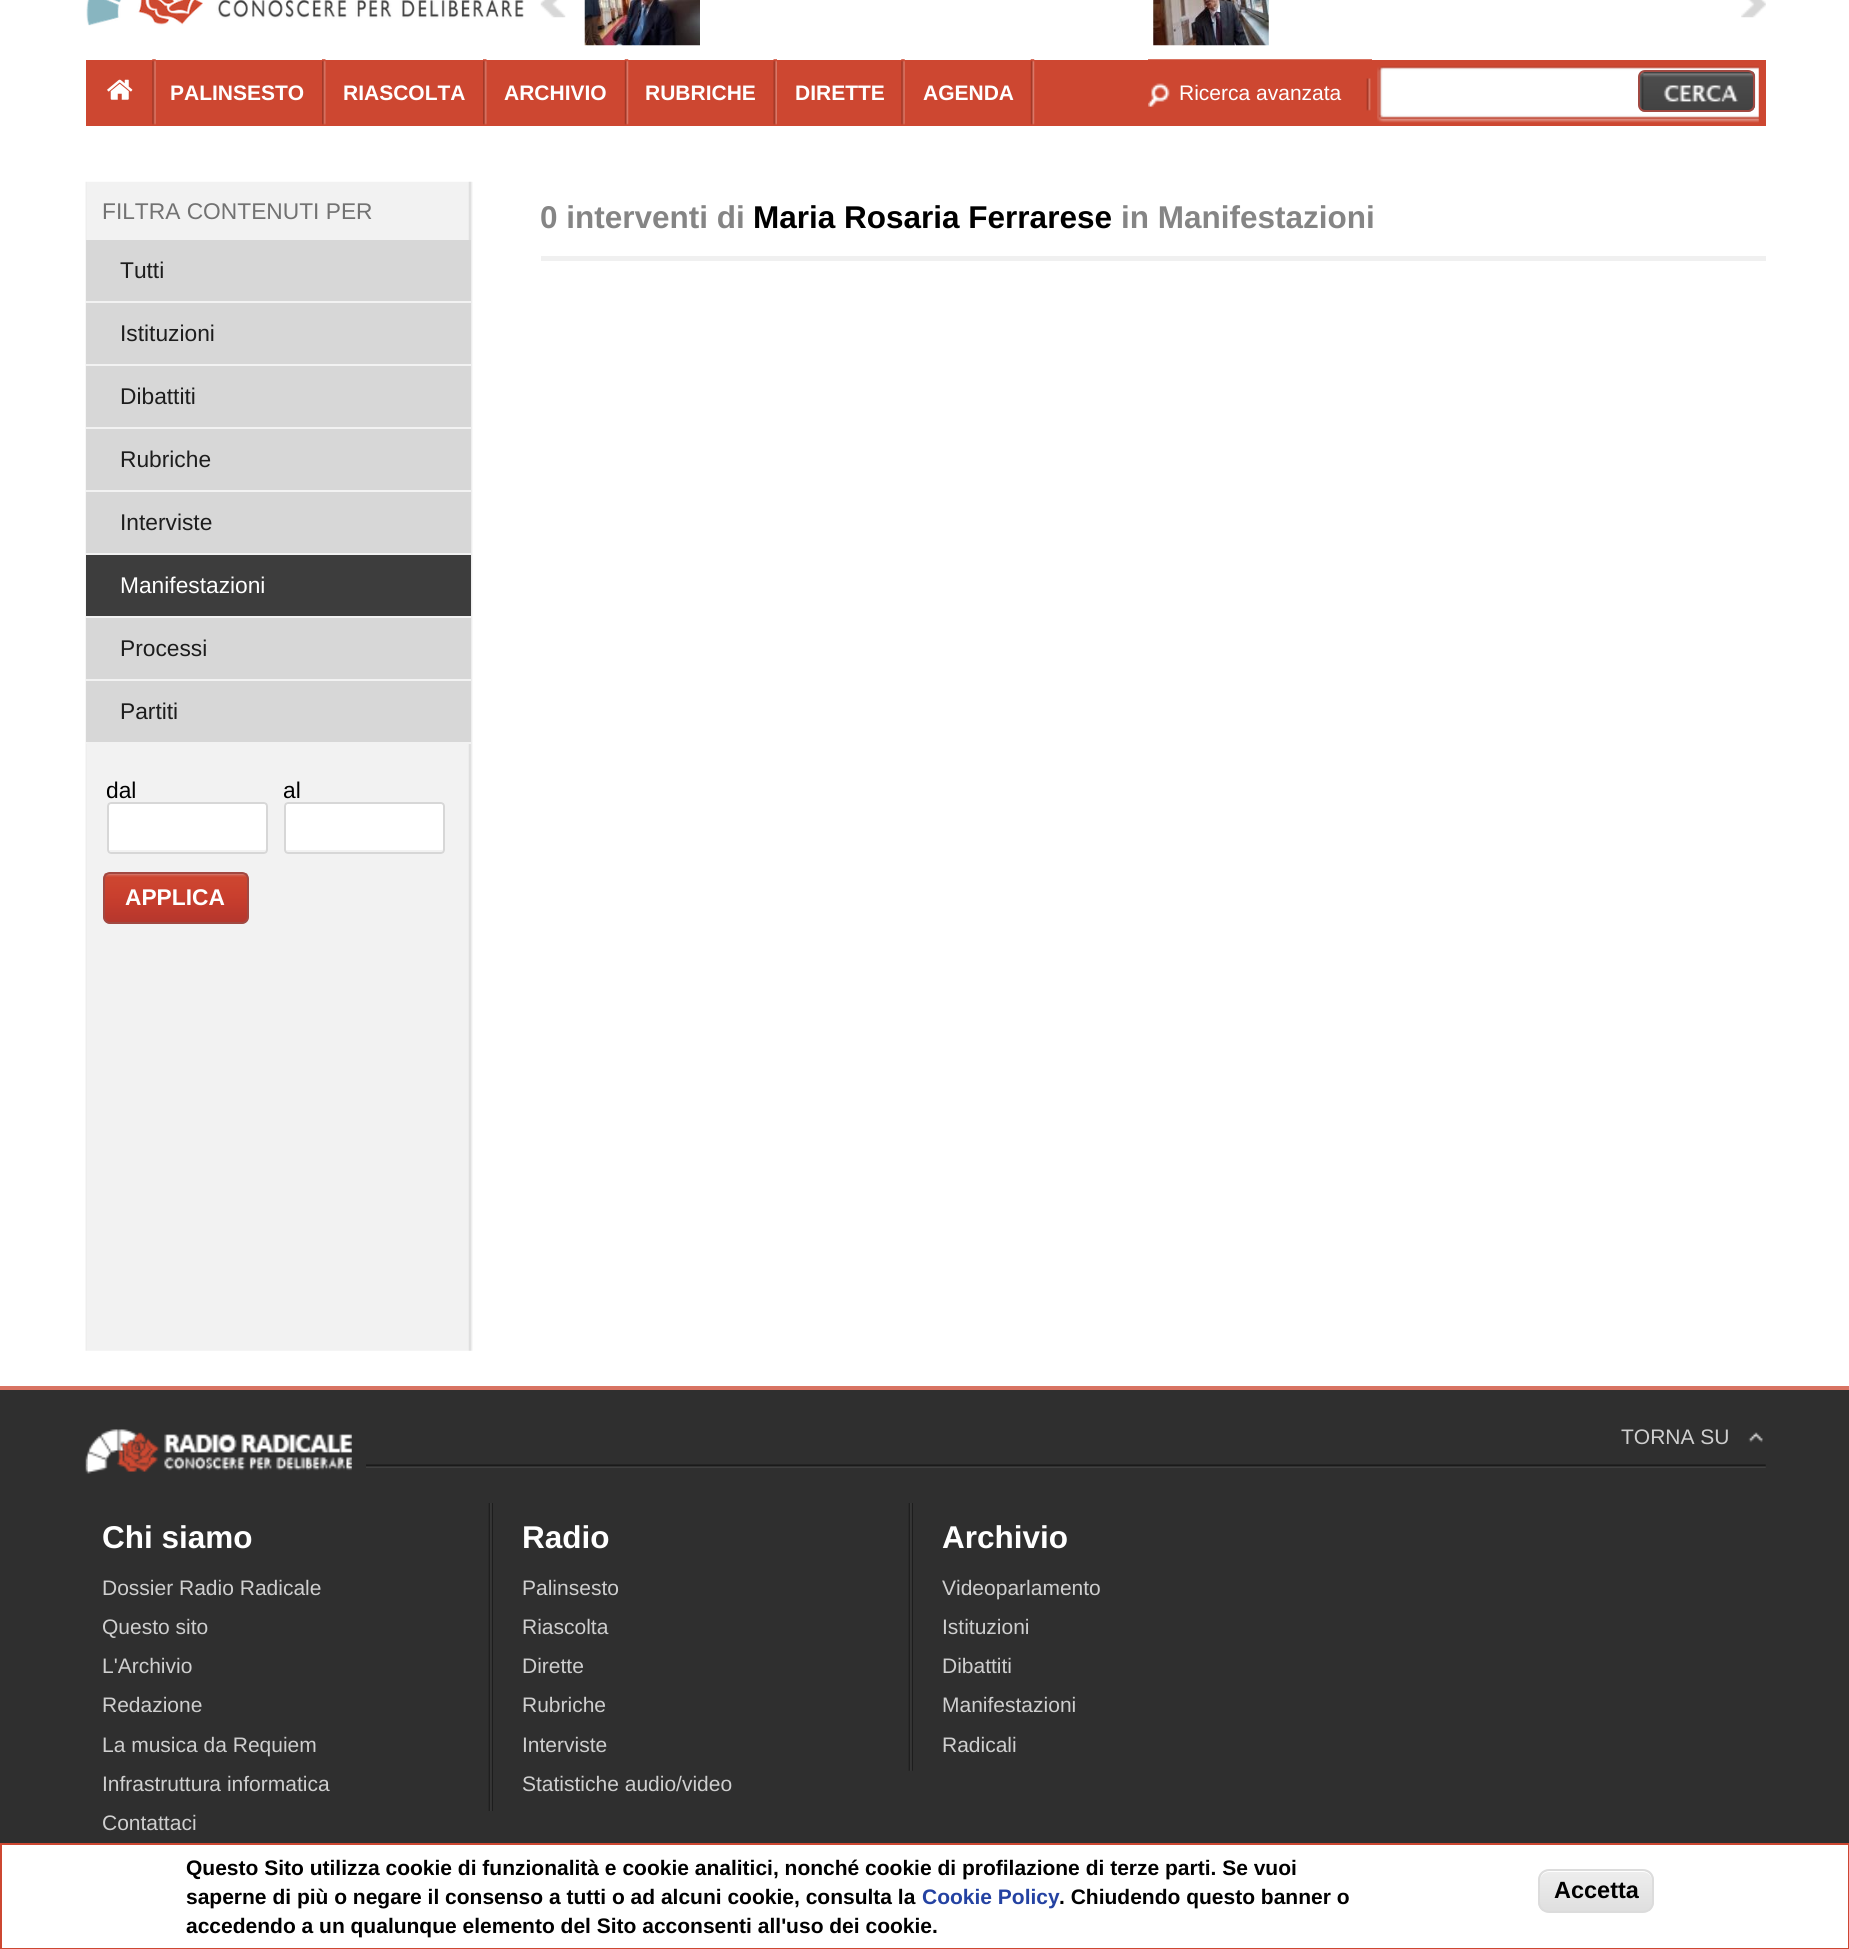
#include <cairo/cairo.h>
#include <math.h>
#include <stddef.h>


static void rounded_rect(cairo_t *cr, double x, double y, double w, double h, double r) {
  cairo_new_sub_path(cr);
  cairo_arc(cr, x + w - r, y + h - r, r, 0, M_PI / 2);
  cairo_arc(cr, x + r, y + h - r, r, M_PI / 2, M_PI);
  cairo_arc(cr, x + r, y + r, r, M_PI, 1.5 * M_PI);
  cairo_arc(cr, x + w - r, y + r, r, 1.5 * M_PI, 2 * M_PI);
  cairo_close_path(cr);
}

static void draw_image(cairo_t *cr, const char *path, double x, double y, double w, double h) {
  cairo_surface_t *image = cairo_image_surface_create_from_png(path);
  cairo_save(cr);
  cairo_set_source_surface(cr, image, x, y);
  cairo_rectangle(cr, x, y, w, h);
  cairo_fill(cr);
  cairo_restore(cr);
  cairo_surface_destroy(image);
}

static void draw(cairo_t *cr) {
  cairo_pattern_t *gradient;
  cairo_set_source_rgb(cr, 1, 1, 1);
  cairo_paint(cr);
  draw_image(cr, "images/1.png", 86, 0, 438, 26);
  draw_image(cr, "images/2.png", 540, 0, 26, 18);
  draw_image(cr, "images/3.png", 1741, 0, 25, 18);
  draw_image(cr, "images/4.png", 584, 0, 116, 46);
  draw_image(cr, "images/5.png", 1153, 0, 116, 46);
  cairo_set_source_rgb(cr, 205 / 255.0, 71 / 255.0, 49 / 255.0);
  cairo_rectangle(cr, 86, 60, 1680, 66);
  cairo_fill(cr);
  draw_image(cr, "images/6.png", 107, 79, 26, 21);
  draw_image(cr, "images/7.png", 152, 59, 4, 66);
  draw_image(cr, "images/8.png", 322, 59, 4, 66);
  draw_image(cr, "images/8.png", 483, 59, 4, 66);
  draw_image(cr, "images/9.png", 624, 59, 5, 66);
  draw_image(cr, "images/10.png", 773, 59, 4, 66);
  draw_image(cr, "images/7.png", 901, 59, 4, 66);
  draw_image(cr, "images/9.png", 1030, 59, 5, 66);
  draw_image(cr, "images/11.png", 1148, 59, 224, 52);
  draw_image(cr, "images/12.png", 1377, 66, 382, 57);
  draw_image(cr, "images/13.png", 1639, 71, 117, 41);
  rounded_rect(cr, 1639, 71, 115, 40, 6);
  cairo_set_source_rgb(cr, 161 / 255.0, 73 / 255.0, 66 / 255.0);
  cairo_stroke(cr);
  draw_image(cr, "images/14.png", 85, 181, 388, 1170);
  cairo_set_source_rgb(cr, 215 / 255.0, 215 / 255.0, 215 / 255.0);
  cairo_rectangle(cr, 86, 240, 385, 61);
  cairo_fill(cr);
  cairo_set_source_rgb(cr, 242 / 255.0, 242 / 255.0, 242 / 255.0);
  cairo_rectangle(cr, 86, 301, 385, 2);
  cairo_fill(cr);
  cairo_set_source_rgb(cr, 215 / 255.0, 215 / 255.0, 215 / 255.0);
  cairo_rectangle(cr, 86, 303, 385, 61);
  cairo_fill(cr);
  cairo_set_source_rgb(cr, 242 / 255.0, 242 / 255.0, 242 / 255.0);
  cairo_rectangle(cr, 86, 364, 385, 2);
  cairo_fill(cr);
  cairo_set_source_rgb(cr, 215 / 255.0, 215 / 255.0, 215 / 255.0);
  cairo_rectangle(cr, 86, 366, 385, 61);
  cairo_fill(cr);
  cairo_set_source_rgb(cr, 242 / 255.0, 242 / 255.0, 242 / 255.0);
  cairo_rectangle(cr, 86, 427, 385, 2);
  cairo_fill(cr);
  cairo_set_source_rgb(cr, 215 / 255.0, 215 / 255.0, 215 / 255.0);
  cairo_rectangle(cr, 86, 429, 385, 61);
  cairo_fill(cr);
  cairo_set_source_rgb(cr, 242 / 255.0, 242 / 255.0, 242 / 255.0);
  cairo_rectangle(cr, 86, 490, 385, 2);
  cairo_fill(cr);
  cairo_set_source_rgb(cr, 215 / 255.0, 215 / 255.0, 215 / 255.0);
  cairo_rectangle(cr, 86, 492, 385, 61);
  cairo_fill(cr);
  cairo_set_source_rgb(cr, 242 / 255.0, 242 / 255.0, 242 / 255.0);
  cairo_rectangle(cr, 86, 553, 385, 2);
  cairo_fill(cr);
  cairo_rectangle(cr, 86, 616, 385, 2);
  cairo_fill(cr);
  cairo_set_source_rgb(cr, 61 / 255.0, 61 / 255.0, 61 / 255.0);
  cairo_rectangle(cr, 86, 555, 385, 61);
  cairo_fill(cr);
  cairo_set_source_rgb(cr, 215 / 255.0, 215 / 255.0, 215 / 255.0);
  cairo_rectangle(cr, 86, 618, 385, 61);
  cairo_fill(cr);
  cairo_set_source_rgb(cr, 242 / 255.0, 242 / 255.0, 242 / 255.0);
  cairo_rectangle(cr, 86, 679, 385, 2);
  cairo_fill(cr);
  cairo_set_source_rgb(cr, 215 / 255.0, 215 / 255.0, 215 / 255.0);
  cairo_rectangle(cr, 86, 681, 385, 61);
  cairo_fill(cr);
  cairo_set_source_rgb(cr, 242 / 255.0, 242 / 255.0, 242 / 255.0);
  cairo_rectangle(cr, 86, 742, 385, 2);
  cairo_fill(cr);
  cairo_set_source_rgb(cr, 1, 1, 1);
  rounded_rect(cr, 107, 802, 161, 52, 4);
  cairo_fill(cr);
  cairo_set_source_rgb(cr, 242 / 255.0, 242 / 255.0, 242 / 255.0);
  cairo_new_path(cr);
  cairo_move_to(cr, 109, 850);
  cairo_curve_to(cr, 109, 851, 110, 852, 111, 852);
  cairo_line_to(cr, 264, 852);
  cairo_curve_to(cr, 265, 852, 266, 851, 266, 850);
  cairo_line_to(cr, 266, 849);
  cairo_curve_to(cr, 266, 850, 265, 850, 264, 850);
  cairo_close_path(cr);
  cairo_fill(cr);
  rounded_rect(cr, 108, 803, 159, 50, 3);
  cairo_set_source_rgb(cr, 215 / 255.0, 215 / 255.0, 215 / 255.0);
  cairo_stroke(cr);
  cairo_set_source_rgb(cr, 1, 1, 1);
  rounded_rect(cr, 284, 802, 161, 52, 4);
  cairo_fill(cr);
  cairo_set_source_rgb(cr, 242 / 255.0, 242 / 255.0, 242 / 255.0);
  cairo_new_path(cr);
  cairo_move_to(cr, 285, 849);
  cairo_curve_to(cr, 285, 850, 285, 852, 287, 852);
  cairo_line_to(cr, 441, 852);
  cairo_curve_to(cr, 443, 852, 443, 850, 443, 849);
  cairo_curve_to(cr, 443, 850, 442, 850, 441, 850);
  cairo_line_to(cr, 287, 850);
  cairo_curve_to(cr, 286, 850, 285, 850, 285, 849);
  cairo_close_path(cr);
  cairo_fill(cr);
  rounded_rect(cr, 285, 803, 159, 50, 3);
  cairo_set_source_rgb(cr, 215 / 255.0, 215 / 255.0, 215 / 255.0);
  cairo_stroke(cr);
  draw_image(cr, "images/15.png", 103, 873, 146, 51);
  rounded_rect(cr, 104, 873, 144, 50, 6);
  cairo_set_source_rgb(cr, 161 / 255.0, 73 / 255.0, 66 / 255.0);
  cairo_stroke(cr);
  cairo_set_source_rgb(cr, 240 / 255.0, 240 / 255.0, 240 / 255.0);
  cairo_rectangle(cr, 541, 256, 1225, 5);
  cairo_fill(cr);
  cairo_set_source_rgb(cr, 47 / 255.0, 47 / 255.0, 47 / 255.0);
  cairo_rectangle(cr, 0, 1390, 1849, 453);
  cairo_fill(cr);
  cairo_set_source_rgb(cr, 216 / 255.0, 115 / 255.0, 99 / 255.0);
  cairo_rectangle(cr, 0, 1386, 1849, 4);
  cairo_fill(cr);
  draw_image(cr, "images/16.png", 85, 1464, 1681, 4);
  cairo_set_source_rgb(cr, 47 / 255.0, 47 / 255.0, 47 / 255.0);
  cairo_rectangle(cr, 86, 1464, 280, 4);
  cairo_fill(cr);
  draw_image(cr, "images/17.png", 85, 1429, 267, 45);
  draw_image(cr, "images/18.png", 1748, 1432, 15, 11);
  draw_image(cr, "images/19.png", 488, 1503, 5, 308);
  draw_image(cr, "images/20.png", 908, 1503, 5, 268);
  cairo_rectangle(cr, 1, 1844, 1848, 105);
  cairo_set_source_rgb(cr, 205 / 255.0, 71 / 255.0, 49 / 255.0);
  cairo_stroke(cr);
  cairo_save(cr);
  rounded_rect(cr, 1538, 1869, 116, 44, 11);
  cairo_clip(cr);
  gradient = cairo_pattern_create_linear(1596, 1871, 1596, 1911);
  cairo_pattern_add_color_stop_rgba(gradient, 0.05, 237 / 255.0, 237 / 255.0, 237 / 255.0, 1);
  cairo_pattern_add_color_stop_rgba(gradient, 1, 223 / 255.0, 223 / 255.0, 223 / 255.0, 1);
  cairo_set_source(cr, gradient);
  cairo_pattern_destroy(gradient);
  cairo_rectangle(cr, 1538, 1871, 116, 40);
  cairo_fill(cr);
  cairo_restore(cr);
  cairo_set_source_rgb(cr, 1, 1, 1);
  cairo_new_path(cr);
  cairo_move_to(cr, 1549, 1872);
  cairo_line_to(cr, 1643, 1872);
  cairo_curve_to(cr, 1648, 1872, 1652, 1876, 1652, 1881);
  cairo_curve_to(cr, 1652, 1867, 1636, 1871, 1627, 1871);
  cairo_line_to(cr, 1565, 1871);
  cairo_curve_to(cr, 1556, 1871, 1540, 1867, 1540, 1881);
  cairo_curve_to(cr, 1540, 1876, 1544, 1872, 1549, 1872);
  cairo_close_path(cr);
  cairo_fill(cr);
  rounded_rect(cr, 1539, 1870, 114, 42, 10);
  cairo_set_source_rgb(cr, 220 / 255.0, 220 / 255.0, 220 / 255.0);
  cairo_stroke(cr);
  cairo_select_font_face(cr, "Liberation Sans", CAIRO_FONT_SLANT_NORMAL, CAIRO_FONT_WEIGHT_BOLD);
  cairo_set_font_size(cr, 21);
  cairo_set_source_rgb(cr, 1, 1, 1);
  cairo_move_to(cr, 170, 100);
  cairo_show_text(cr, "PALINSESTO");
  cairo_move_to(cr, 343, 100);
  cairo_show_text(cr, "RIASCOLTA");
  cairo_move_to(cr, 504, 100);
  cairo_show_text(cr, "ARCHIVIO");
  cairo_move_to(cr, 645, 100);
  cairo_show_text(cr, "RUBRICHE");
  cairo_move_to(cr, 795, 100);
  cairo_show_text(cr, "DIRETTE");
  cairo_move_to(cr, 923, 100);
  cairo_show_text(cr, "AGENDA");
  cairo_select_font_face(cr, "Liberation Sans", CAIRO_FONT_SLANT_NORMAL, CAIRO_FONT_WEIGHT_NORMAL);
  cairo_move_to(cr, 1179, 100);
  cairo_show_text(cr, "Ricerca avanzata");
  cairo_set_font_size(cr, 22.75);
  cairo_set_source_rgb(cr, 114 / 255.0, 114 / 255.0, 114 / 255.0);
  cairo_move_to(cr, 102, 219);
  cairo_show_text(cr, "FILTRA CONTENUTI PER");
  cairo_set_source_rgb(cr, 29 / 255.0, 29 / 255.0, 29 / 255.0);
  cairo_move_to(cr, 120, 278);
  cairo_show_text(cr, "Tutti");
  cairo_move_to(cr, 120, 341);
  cairo_show_text(cr, "Istituzioni");
  cairo_move_to(cr, 120, 404);
  cairo_show_text(cr, "Dibattiti");
  cairo_move_to(cr, 120, 467);
  cairo_show_text(cr, "Rubriche");
  cairo_move_to(cr, 120, 530);
  cairo_show_text(cr, "Interviste");
  cairo_set_source_rgb(cr, 1, 1, 1);
  cairo_move_to(cr, 120, 593);
  cairo_show_text(cr, "Manifestazioni");
  cairo_set_source_rgb(cr, 29 / 255.0, 29 / 255.0, 29 / 255.0);
  cairo_move_to(cr, 120, 656);
  cairo_show_text(cr, "Processi");
  cairo_move_to(cr, 120, 719);
  cairo_show_text(cr, "Partiti");
  cairo_set_source_rgb(cr, 0, 0, 0);
  cairo_move_to(cr, 106, 798);
  cairo_show_text(cr, "dal");
  cairo_move_to(cr, 283, 798);
  cairo_show_text(cr, "al");
  cairo_select_font_face(cr, "Liberation Sans", CAIRO_FONT_SLANT_NORMAL, CAIRO_FONT_WEIGHT_BOLD);
  cairo_set_source_rgb(cr, 1, 1, 1);
  cairo_move_to(cr, 125, 905);
  cairo_show_text(cr, "APPLICA");
  cairo_set_font_size(cr, 31.5);
  cairo_set_source_rgb(cr, 133 / 255.0, 133 / 255.0, 133 / 255.0);
  cairo_move_to(cr, 540, 228);
  cairo_show_text(cr, "0 interventi di");
  cairo_set_source_rgb(cr, 0, 0, 0);
  cairo_move_to(cr, 753, 228);
  cairo_show_text(cr, "Maria Rosaria Ferrarese");
  cairo_set_source_rgb(cr, 133 / 255.0, 133 / 255.0, 133 / 255.0);
  cairo_move_to(cr, 1121, 228);
  cairo_show_text(cr, "in Manifestazioni");
  cairo_select_font_face(cr, "Liberation Sans", CAIRO_FONT_SLANT_NORMAL, CAIRO_FONT_WEIGHT_NORMAL);
  cairo_set_font_size(cr, 21);
  cairo_set_source_rgb(cr, 207 / 255.0, 207 / 255.0, 207 / 255.0);
  cairo_move_to(cr, 1621, 1444);
  cairo_show_text(cr, "TORNA SU");
  cairo_select_font_face(cr, "Liberation Sans", CAIRO_FONT_SLANT_NORMAL, CAIRO_FONT_WEIGHT_BOLD);
  cairo_set_font_size(cr, 31.5);
  cairo_set_source_rgb(cr, 1, 1, 1);
  cairo_move_to(cr, 102, 1548);
  cairo_show_text(cr, "Chi siamo");
  cairo_select_font_face(cr, "Liberation Sans", CAIRO_FONT_SLANT_NORMAL, CAIRO_FONT_WEIGHT_NORMAL);
  cairo_set_font_size(cr, 21);
  cairo_set_source_rgb(cr, 207 / 255.0, 207 / 255.0, 207 / 255.0);
  cairo_move_to(cr, 102, 1595);
  cairo_show_text(cr, "Dossier Radio Radicale");
  cairo_move_to(cr, 102, 1634);
  cairo_show_text(cr, "Questo sito");
  cairo_move_to(cr, 102, 1673);
  cairo_show_text(cr, "L'Archivio");
  cairo_move_to(cr, 102, 1712);
  cairo_show_text(cr, "Redazione");
  cairo_move_to(cr, 102, 1752);
  cairo_show_text(cr, "La musica da Requiem");
  cairo_move_to(cr, 102, 1791);
  cairo_show_text(cr, "Infrastruttura informatica");
  cairo_move_to(cr, 102, 1830);
  cairo_show_text(cr, "Contattaci");
  cairo_select_font_face(cr, "Liberation Sans", CAIRO_FONT_SLANT_NORMAL, CAIRO_FONT_WEIGHT_BOLD);
  cairo_set_font_size(cr, 31.5);
  cairo_set_source_rgb(cr, 1, 1, 1);
  cairo_move_to(cr, 522, 1548);
  cairo_show_text(cr, "Radio");
  cairo_select_font_face(cr, "Liberation Sans", CAIRO_FONT_SLANT_NORMAL, CAIRO_FONT_WEIGHT_NORMAL);
  cairo_set_font_size(cr, 21);
  cairo_set_source_rgb(cr, 207 / 255.0, 207 / 255.0, 207 / 255.0);
  cairo_move_to(cr, 522, 1595);
  cairo_show_text(cr, "Palinsesto");
  cairo_move_to(cr, 522, 1634);
  cairo_show_text(cr, "Riascolta");
  cairo_move_to(cr, 522, 1673);
  cairo_show_text(cr, "Dirette");
  cairo_move_to(cr, 522, 1712);
  cairo_show_text(cr, "Rubriche");
  cairo_move_to(cr, 522, 1752);
  cairo_show_text(cr, "Interviste");
  cairo_move_to(cr, 522, 1791);
  cairo_show_text(cr, "Statistiche audio/video");
  cairo_select_font_face(cr, "Liberation Sans", CAIRO_FONT_SLANT_NORMAL, CAIRO_FONT_WEIGHT_BOLD);
  cairo_set_font_size(cr, 31.5);
  cairo_set_source_rgb(cr, 1, 1, 1);
  cairo_move_to(cr, 942, 1548);
  cairo_show_text(cr, "Archivio");
  cairo_select_font_face(cr, "Liberation Sans", CAIRO_FONT_SLANT_NORMAL, CAIRO_FONT_WEIGHT_NORMAL);
  cairo_set_font_size(cr, 21);
  cairo_set_source_rgb(cr, 207 / 255.0, 207 / 255.0, 207 / 255.0);
  cairo_move_to(cr, 942, 1595);
  cairo_show_text(cr, "Videoparlamento");
  cairo_move_to(cr, 942, 1634);
  cairo_show_text(cr, "Istituzioni");
  cairo_move_to(cr, 942, 1673);
  cairo_show_text(cr, "Dibattiti");
  cairo_move_to(cr, 942, 1712);
  cairo_show_text(cr, "Manifestazioni");
  cairo_move_to(cr, 942, 1752);
  cairo_show_text(cr, "Radicali");
  cairo_select_font_face(cr, "Liberation Sans", CAIRO_FONT_SLANT_NORMAL, CAIRO_FONT_WEIGHT_BOLD);
  cairo_set_source_rgb(cr, 0, 0, 0);
  cairo_move_to(cr, 186, 1875);
  cairo_show_text(cr, "Questo Sito utilizza cookie di funzionalità e cookie analitici, nonché cookie di profilazione di terze parti. Se vuoi");
  cairo_move_to(cr, 186, 1904);
  cairo_show_text(cr, "saperne di più o negare il consenso a tutti o ad alcuni cookie, consulta la");
  cairo_set_source_rgb(cr, 36 / 255.0, 66 / 255.0, 162 / 255.0);
  cairo_move_to(cr, 922, 1904);
  cairo_show_text(cr, "Cookie Policy");
  cairo_set_source_rgb(cr, 0, 0, 0);
  cairo_move_to(cr, 1059, 1904);
  cairo_show_text(cr, ". Chiudendo questo banner o");
  cairo_move_to(cr, 186, 1933);
  cairo_show_text(cr, "accedendo a un qualunque elemento del Sito acconsenti all'uso dei cookie.");
  cairo_set_font_size(cr, 23.5);
  cairo_move_to(cr, 1554, 1898);
  cairo_show_text(cr, "Accetta");
}

int main(void) {
  cairo_surface_t *surface = cairo_image_surface_create(CAIRO_FORMAT_RGB24, 1849, 1949);
  cairo_t *cr = cairo_create(surface);
  cairo_font_options_t *options = cairo_font_options_create();
  cairo_font_options_set_hint_metrics(options, CAIRO_HINT_METRICS_OFF);
  cairo_font_options_set_hint_style(options, CAIRO_HINT_STYLE_NONE);
  cairo_set_font_options(cr, options);
  cairo_set_miter_limit(cr, 4);
  draw(cr);
  cairo_surface_write_to_png(surface, "out.png");
  cairo_font_options_destroy(options);
  cairo_destroy(cr);
  cairo_surface_destroy(surface);
  return 0;
}
